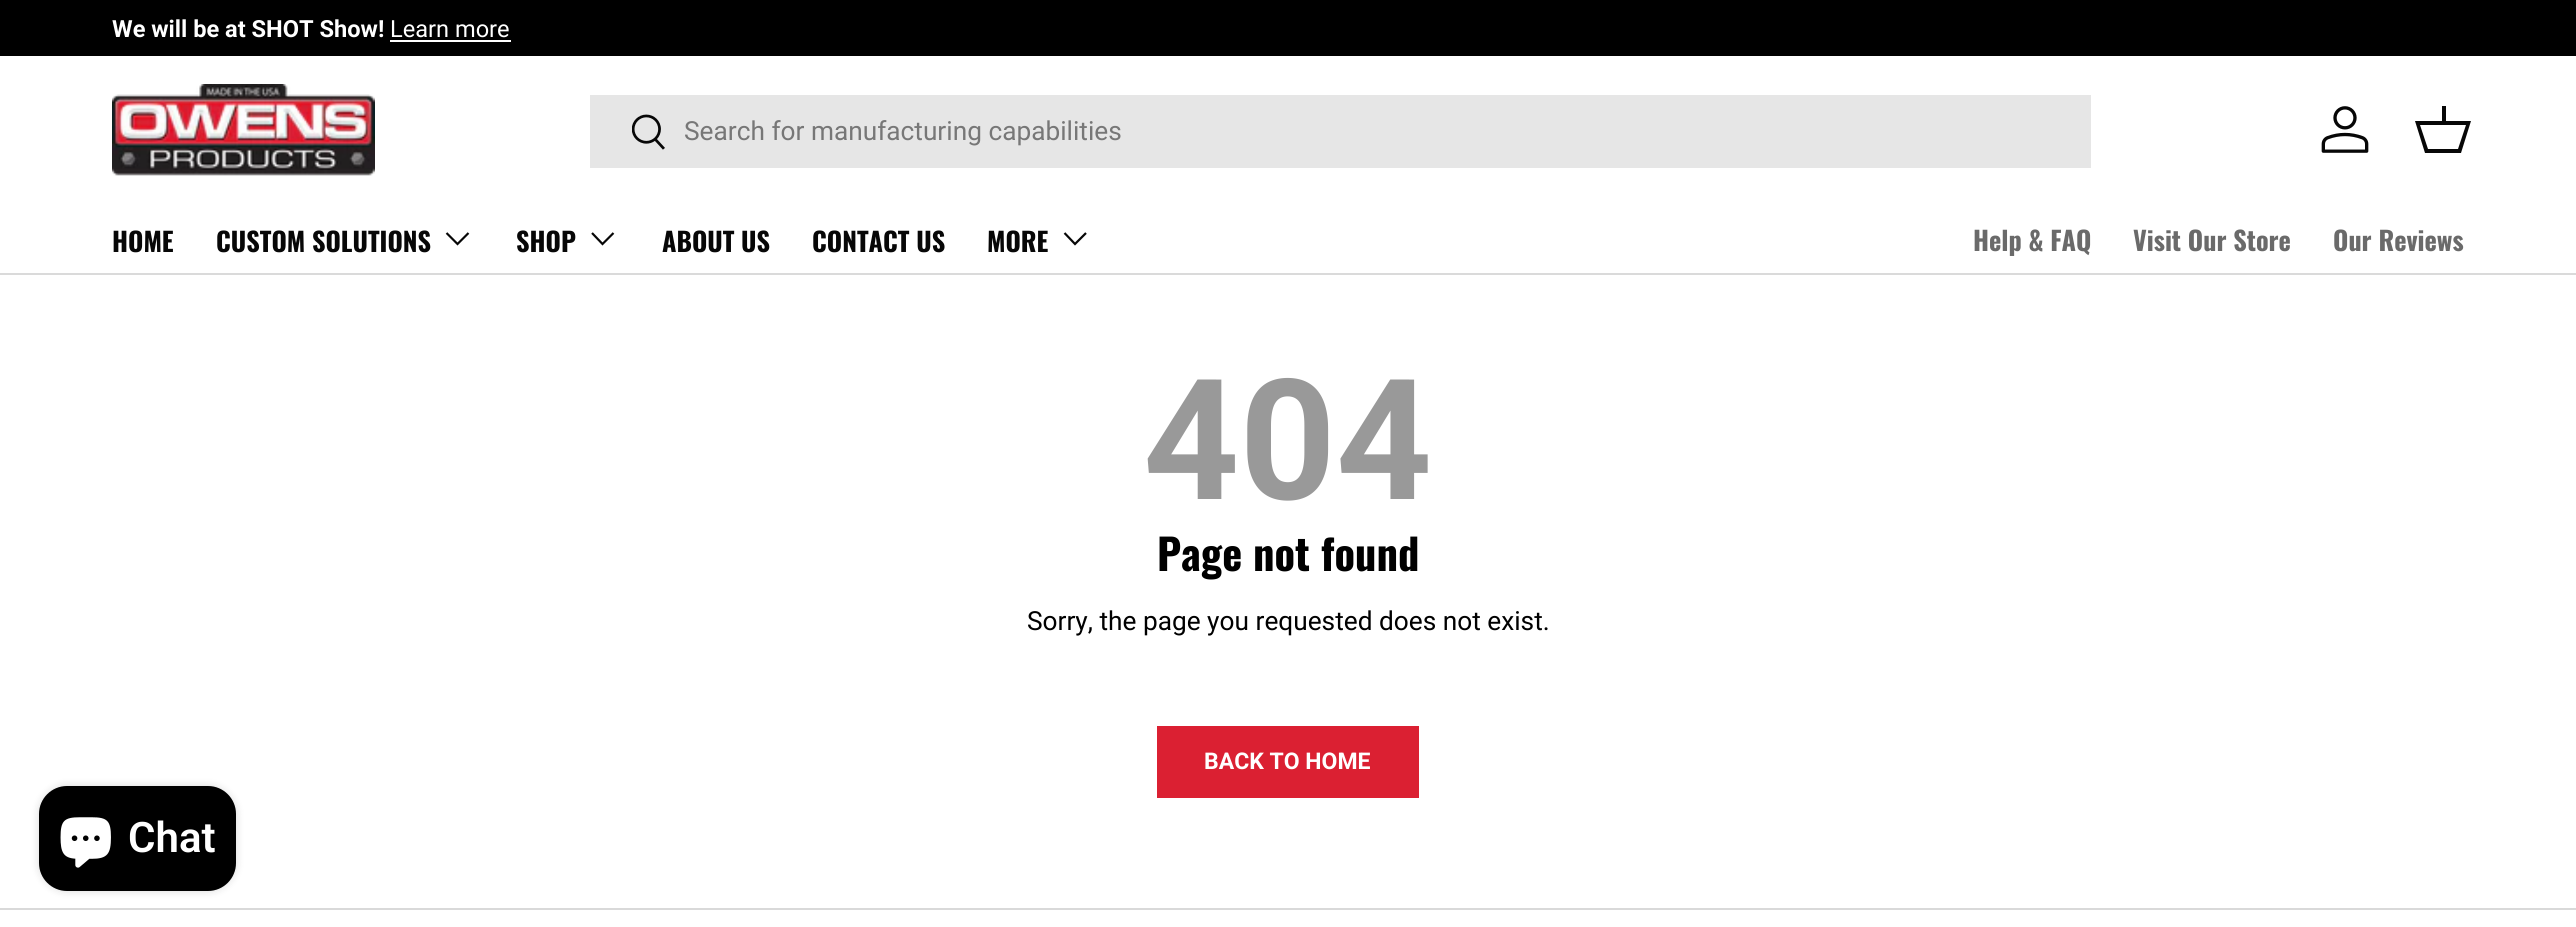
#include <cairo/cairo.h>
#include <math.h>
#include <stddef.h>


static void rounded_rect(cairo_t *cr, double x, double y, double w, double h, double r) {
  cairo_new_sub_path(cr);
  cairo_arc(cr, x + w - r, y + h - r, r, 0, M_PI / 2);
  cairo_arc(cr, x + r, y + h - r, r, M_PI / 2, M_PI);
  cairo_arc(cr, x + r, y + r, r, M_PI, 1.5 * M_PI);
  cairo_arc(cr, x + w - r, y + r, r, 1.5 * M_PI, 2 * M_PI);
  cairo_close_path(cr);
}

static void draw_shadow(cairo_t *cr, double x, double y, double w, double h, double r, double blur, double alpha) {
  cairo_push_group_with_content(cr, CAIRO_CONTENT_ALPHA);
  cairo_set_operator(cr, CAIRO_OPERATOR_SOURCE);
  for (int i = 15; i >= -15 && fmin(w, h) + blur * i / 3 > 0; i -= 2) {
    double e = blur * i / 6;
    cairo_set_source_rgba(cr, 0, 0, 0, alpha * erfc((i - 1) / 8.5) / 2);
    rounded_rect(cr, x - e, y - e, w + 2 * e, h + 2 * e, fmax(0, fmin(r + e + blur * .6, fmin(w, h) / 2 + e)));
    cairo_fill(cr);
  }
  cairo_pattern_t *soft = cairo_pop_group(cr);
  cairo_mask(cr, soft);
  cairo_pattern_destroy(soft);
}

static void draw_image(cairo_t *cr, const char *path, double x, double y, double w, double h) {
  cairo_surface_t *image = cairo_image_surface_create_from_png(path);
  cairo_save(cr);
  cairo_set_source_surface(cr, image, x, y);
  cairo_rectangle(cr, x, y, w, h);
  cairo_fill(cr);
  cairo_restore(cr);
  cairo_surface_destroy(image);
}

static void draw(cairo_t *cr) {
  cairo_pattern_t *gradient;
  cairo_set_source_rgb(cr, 1, 1, 1);
  cairo_paint(cr);
  cairo_set_source_rgb(cr, 0, 0, 0);
  cairo_rectangle(cr, 0, 0, 2576, 56);
  cairo_fill(cr);
  cairo_set_source_rgb(cr, 1, 1, 1);
  cairo_rectangle(cr, 390, 40, 121, 2);
  cairo_fill(cr);
  cairo_set_source_rgb(cr, 218 / 255.0, 218 / 255.0, 218 / 255.0);
  cairo_rectangle(cr, 0, 273, 2576, 2);
  cairo_fill(cr);
  draw_image(cr, "images/1.png", 112, 84, 263, 92);
  cairo_set_source_rgb(cr, 230 / 255.0, 230 / 255.0, 230 / 255.0);
  cairo_rectangle(cr, 590, 95, 1501, 73);
  cairo_fill(cr);
  draw_image(cr, "images/2.png", 632, 114, 33, 36);
  draw_image(cr, "images/3.png", 2321, 106, 48, 47);
  cairo_set_source_rgb(cr, 7 / 255.0, 7 / 255.0, 7 / 255.0);
  cairo_new_path(cr);
  cairo_move_to(cr, 2442, 121);
  cairo_line_to(cr, 2442, 106);
  cairo_line_to(cr, 2446, 106);
  cairo_line_to(cr, 2446, 121);
  cairo_line_to(cr, 2471, 121);
  cairo_line_to(cr, 2461, 153);
  cairo_line_to(cr, 2425, 153);
  cairo_line_to(cr, 2415, 121);
  cairo_close_path(cr);
  cairo_move_to(cr, 2420, 125);
  cairo_line_to(cr, 2428, 149);
  cairo_line_to(cr, 2458, 149);
  cairo_line_to(cr, 2466, 125);
  cairo_close_path(cr);
  cairo_fill(cr);
  cairo_new_path(cr);
  cairo_move_to(cr, 468.5, 233);
  cairo_line_to(cr, 457.5, 244);
  cairo_line_to(cr, 446.5, 233);
  cairo_set_line_width(cr, 2.2);
  cairo_stroke(cr);
  cairo_new_path(cr);
  cairo_move_to(cr, 613.5, 233);
  cairo_line_to(cr, 602.5, 244);
  cairo_line_to(cr, 592, 233);
  cairo_stroke(cr);
  cairo_new_path(cr);
  cairo_move_to(cr, 1086, 233);
  cairo_line_to(cr, 1075, 244);
  cairo_line_to(cr, 1064.5, 233);
  cairo_stroke(cr);
  gradient = cairo_pattern_create_linear(655, 669, 1403, 855);
  cairo_pattern_add_color_stop_rgba(gradient, 0.6, 226 / 255.0, 78 / 255.0, 93 / 255.0, 1);
  cairo_pattern_add_color_stop_rgba(gradient, 0.6, 219 / 255.0, 32 / 255.0, 50 / 255.0, 1);
  cairo_pattern_add_color_stop_rgba(gradient, 1, 219 / 255.0, 32 / 255.0, 50 / 255.0, 1);
  cairo_set_source(cr, gradient);
  cairo_pattern_destroy(gradient);
  cairo_rectangle(cr, 1159, 728, 258, 68);
  cairo_fill(cr);
  cairo_rectangle(cr, 1158, 727, 260, 70);
  cairo_set_source_rgb(cr, 219 / 255.0, 32 / 255.0, 50 / 255.0);
  cairo_set_line_width(cr, 2);
  cairo_stroke(cr);
  cairo_set_source_rgb(cr, 0, 0, 0);
  draw_shadow(cr, 39, 786, 197, 105, 28, 4.5, 0.15);
  cairo_set_source_rgb(cr, 0, 0, 0);
  rounded_rect(cr, 39, 786, 197, 105, 28);
  cairo_fill(cr);
  draw_image(cr, "images/4.png", 60, 817, 51, 51);
  cairo_set_source_rgb(cr, 217 / 255.0, 217 / 255.0, 217 / 255.0);
  cairo_rectangle(cr, 0, 908, 2576, 2);
  cairo_fill(cr);
  cairo_select_font_face(cr, "Roboto", CAIRO_FONT_SLANT_NORMAL, CAIRO_FONT_WEIGHT_BOLD);
  cairo_set_font_size(cr, 23.6);
  cairo_set_source_rgb(cr, 1, 1, 1);
  cairo_move_to(cr, 112, 37);
  cairo_show_text(cr, "We will be at SHOT Show!");
  cairo_select_font_face(cr, "Roboto", CAIRO_FONT_SLANT_NORMAL, CAIRO_FONT_WEIGHT_NORMAL);
  cairo_move_to(cr, 390, 37);
  cairo_show_text(cr, "Learn more");
  cairo_set_font_size(cr, 26.25);
  cairo_set_source_rgb(cr, 119 / 255.0, 119 / 255.0, 119 / 255.0);
  cairo_move_to(cr, 684, 140);
  cairo_show_text(cr, "Search for manufacturing capabilities");
  cairo_select_font_face(cr, "Oswald", CAIRO_FONT_SLANT_NORMAL, CAIRO_FONT_WEIGHT_BOLD);
  cairo_set_source_rgb(cr, 7 / 255.0, 7 / 255.0, 7 / 255.0);
  cairo_move_to(cr, 112, 252);
  cairo_show_text(cr, "HOME");
  cairo_move_to(cr, 216, 252);
  cairo_show_text(cr, "CUSTOM SOLUTIONS");
  cairo_move_to(cr, 516, 252);
  cairo_show_text(cr, "SHOP");
  cairo_move_to(cr, 662, 252);
  cairo_show_text(cr, "ABOUT US");
  cairo_move_to(cr, 812, 252);
  cairo_show_text(cr, "CONTACT US");
  cairo_move_to(cr, 987, 252);
  cairo_show_text(cr, "MORE");
  cairo_set_source_rgb(cr, 106 / 255.0, 106 / 255.0, 106 / 255.0);
  cairo_move_to(cr, 1973, 251);
  cairo_show_text(cr, "Help & FAQ");
  cairo_move_to(cr, 2133, 251);
  cairo_show_text(cr, "Visit Our Store");
  cairo_move_to(cr, 2333, 251);
  cairo_show_text(cr, "Our Reviews");
  cairo_select_font_face(cr, "Roboto", CAIRO_FONT_SLANT_NORMAL, CAIRO_FONT_WEIGHT_BOLD);
  cairo_set_font_size(cr, 168);
  cairo_set_source_rgb(cr, 153 / 255.0, 153 / 255.0, 153 / 255.0);
  cairo_move_to(cr, 1143, 499);
  cairo_show_text(cr, "404");
  cairo_select_font_face(cr, "Oswald", CAIRO_FONT_SLANT_NORMAL, CAIRO_FONT_WEIGHT_BOLD);
  cairo_set_font_size(cr, 42.5);
  cairo_set_source_rgb(cr, 0, 0, 0);
  cairo_move_to(cr, 1157, 571);
  cairo_show_text(cr, "Page not found");
  cairo_select_font_face(cr, "Roboto", CAIRO_FONT_SLANT_NORMAL, CAIRO_FONT_WEIGHT_NORMAL);
  cairo_set_font_size(cr, 26.25);
  cairo_move_to(cr, 1027, 630);
  cairo_show_text(cr, "Sorry, the page you requested does not exist.");
  cairo_select_font_face(cr, "Roboto", CAIRO_FONT_SLANT_NORMAL, CAIRO_FONT_WEIGHT_BOLD);
  cairo_set_font_size(cr, 23);
  cairo_set_source_rgb(cr, 1, 1, 1);
  cairo_move_to(cr, 1204, 769);
  cairo_show_text(cr, "BACK TO HOME");
  cairo_select_font_face(cr, "Roboto SemiBold", CAIRO_FONT_SLANT_NORMAL, CAIRO_FONT_WEIGHT_NORMAL);
  cairo_set_font_size(cr, 42);
  cairo_move_to(cr, 128, 852);
  cairo_show_text(cr, "Chat");
}

int main(void) {
  cairo_surface_t *surface = cairo_image_surface_create(CAIRO_FORMAT_RGB24, 2576, 927);
  cairo_t *cr = cairo_create(surface);
  cairo_font_options_t *options = cairo_font_options_create();
  cairo_font_options_set_hint_metrics(options, CAIRO_HINT_METRICS_OFF);
  cairo_font_options_set_hint_style(options, CAIRO_HINT_STYLE_NONE);
  cairo_set_font_options(cr, options);
  cairo_set_miter_limit(cr, 4);
  draw(cr);
  cairo_surface_write_to_png(surface, "out.png");
  cairo_font_options_destroy(options);
  cairo_destroy(cr);
  cairo_surface_destroy(surface);
  return 0;
}
